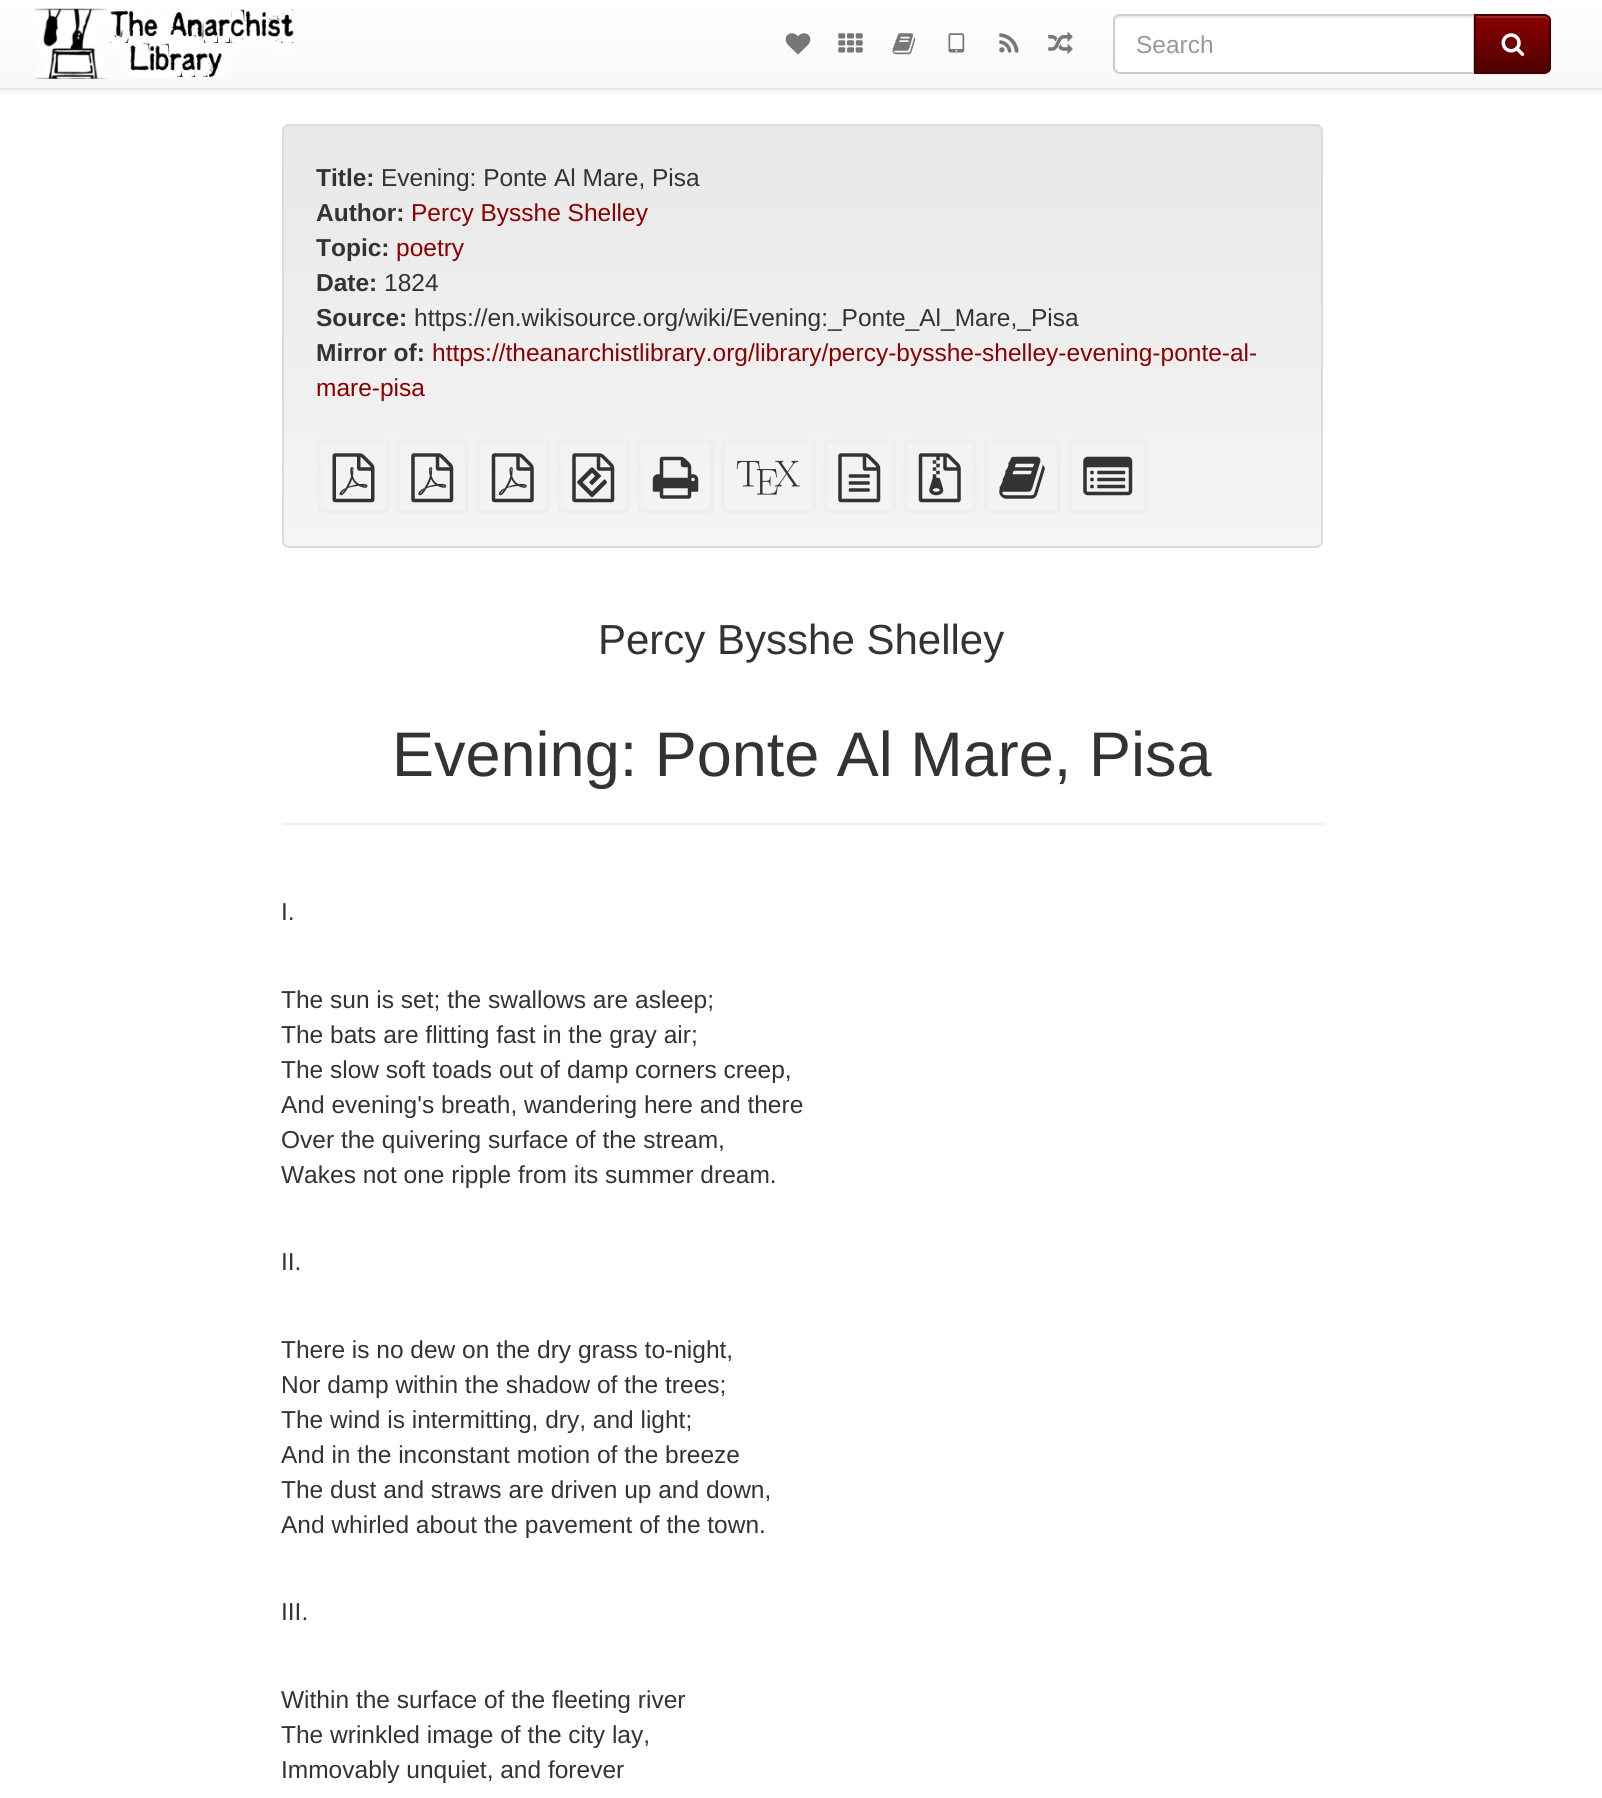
#include <cairo/cairo.h>
#include <math.h>
#include <stddef.h>


static void rounded_rect(cairo_t *cr, double x, double y, double w, double h, double r) {
  cairo_new_sub_path(cr);
  cairo_arc(cr, x + w - r, y + h - r, r, 0, M_PI / 2);
  cairo_arc(cr, x + r, y + h - r, r, M_PI / 2, M_PI);
  cairo_arc(cr, x + r, y + r, r, M_PI, 1.5 * M_PI);
  cairo_arc(cr, x + w - r, y + r, r, 1.5 * M_PI, 2 * M_PI);
  cairo_close_path(cr);
}

static void draw_shadow(cairo_t *cr, double x, double y, double w, double h, double r, double blur, double alpha) {
  cairo_push_group_with_content(cr, CAIRO_CONTENT_ALPHA);
  cairo_set_operator(cr, CAIRO_OPERATOR_SOURCE);
  for (int i = 15; i >= -15 && fmin(w, h) + blur * i / 3 > 0; i -= 2) {
    double e = blur * i / 6;
    cairo_set_source_rgba(cr, 0, 0, 0, alpha * erfc((i - 1) / 8.5) / 2);
    rounded_rect(cr, x - e, y - e, w + 2 * e, h + 2 * e, fmax(0, fmin(r + e + blur * .6, fmin(w, h) / 2 + e)));
    cairo_fill(cr);
  }
  cairo_pattern_t *soft = cairo_pop_group(cr);
  cairo_mask(cr, soft);
  cairo_pattern_destroy(soft);
}

static void draw_image(cairo_t *cr, const char *path, double x, double y, double w, double h) {
  cairo_surface_t *image = cairo_image_surface_create_from_png(path);
  cairo_save(cr);
  cairo_set_source_surface(cr, image, x, y);
  cairo_rectangle(cr, x, y, w, h);
  cairo_fill(cr);
  cairo_restore(cr);
  cairo_surface_destroy(image);
}

static void draw(cairo_t *cr) {
  cairo_pattern_t *gradient;
  cairo_set_source_rgb(cr, 1, 1, 1);
  cairo_paint(cr);
  cairo_set_source_rgb(cr, 0, 0, 0);
  draw_shadow(cr, 0, 2, 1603, 89, 0, 4.5, 0.07);
  gradient = cairo_pattern_create_linear(802, 0, 802, 88);
  cairo_pattern_add_color_stop_rgba(gradient, 0, 1, 1, 1, 1);
  cairo_pattern_add_color_stop_rgba(gradient, 1, 248 / 255.0, 248 / 255.0, 248 / 255.0, 1);
  cairo_set_source(cr, gradient);
  cairo_pattern_destroy(gradient);
  cairo_rectangle(cr, 0, 0, 1602, 88);
  cairo_fill(cr);
  cairo_set_source_rgb(cr, 231 / 255.0, 231 / 255.0, 231 / 255.0);
  cairo_rectangle(cr, 0, 88, 1602, 2);
  cairo_fill(cr);
  draw_image(cr, "images/1.png", 35, 8, 259, 71);
  draw_image(cr, "images/2.png", 785, 33, 26, 22);
  draw_image(cr, "images/3.png", 838, 33, 25, 20);
  draw_image(cr, "images/4.png", 892, 33, 24, 22);
  draw_image(cr, "images/5.png", 948, 33, 17, 20);
  draw_image(cr, "images/6.png", 999, 33, 20, 20);
  draw_image(cr, "images/7.png", 1048, 32, 25, 22);
  cairo_set_source_rgb(cr, 1, 1, 1);
  cairo_new_path(cr);
  cairo_move_to(cr, 1120, 14);
  cairo_line_to(cr, 1475, 14);
  cairo_line_to(cr, 1475, 74);
  cairo_line_to(cr, 1120, 74);
  cairo_curve_to(cr, 1116, 74, 1113, 71, 1113, 67);
  cairo_line_to(cr, 1113, 21);
  cairo_curve_to(cr, 1113, 17, 1116, 14, 1120, 14);
  cairo_close_path(cr);
  cairo_fill(cr);
  cairo_set_source_rgb(cr, 236 / 255.0, 236 / 255.0, 236 / 255.0);
  cairo_new_path(cr);
  cairo_move_to(cr, 1120, 18);
  cairo_line_to(cr, 1474, 18);
  cairo_line_to(cr, 1474, 16);
  cairo_line_to(cr, 1120, 16);
  cairo_curve_to(cr, 1116, 16, 1115, 20, 1115, 23);
  cairo_curve_to(cr, 1115, 20, 1117, 18, 1120, 18);
  cairo_close_path(cr);
  cairo_fill(cr);
  cairo_new_path(cr);
  cairo_move_to(cr, 1120, 15);
  cairo_line_to(cr, 1474, 15);
  cairo_line_to(cr, 1474, 73);
  cairo_line_to(cr, 1120, 73);
  cairo_curve_to(cr, 1116.5, 73, 1114, 70.5, 1114, 67);
  cairo_line_to(cr, 1114, 21);
  cairo_curve_to(cr, 1114, 17.5, 1116.5, 15, 1120, 15);
  cairo_close_path(cr);
  cairo_set_source_rgb(cr, 204 / 255.0, 204 / 255.0, 204 / 255.0);
  cairo_stroke(cr);
  cairo_set_source_rgb(cr, 0, 0, 0);
  draw_shadow(cr, 1474, 16, 77, 59, 7, 1, 0.07);
  cairo_save(cr);
  cairo_new_path(cr);
  cairo_move_to(cr, 1474, 14);
  cairo_line_to(cr, 1544, 14);
  cairo_curve_to(cr, 1548, 14, 1551, 17, 1551, 21);
  cairo_line_to(cr, 1551, 67);
  cairo_curve_to(cr, 1551, 71, 1548, 74, 1544, 74);
  cairo_line_to(cr, 1474, 74);
  cairo_close_path(cr);
  cairo_clip(cr);
  gradient = cairo_pattern_create_linear(1512, 16, 1512, 72);
  cairo_pattern_add_color_stop_rgba(gradient, 0, 139 / 255.0, 0, 0, 1);
  cairo_pattern_add_color_stop_rgba(gradient, 1, 78 / 255.0, 0, 0, 1);
  cairo_set_source(cr, gradient);
  cairo_pattern_destroy(gradient);
  cairo_rectangle(cr, 1476, 16, 75, 56);
  cairo_fill(cr);
  cairo_restore(cr);
  cairo_set_source_rgba(cr, 1, 1, 1, 0.15);
  cairo_new_path(cr);
  cairo_move_to(cr, 1475, 18);
  cairo_line_to(cr, 1544, 18);
  cairo_curve_to(cr, 1546, 18, 1549, 20, 1549, 23);
  cairo_line_to(cr, 1549, 21);
  cairo_curve_to(cr, 1549, 18, 1547, 16, 1544, 16);
  cairo_line_to(cr, 1475, 16);
  cairo_close_path(cr);
  cairo_fill(cr);
  cairo_new_path(cr);
  cairo_move_to(cr, 1475, 15);
  cairo_line_to(cr, 1544, 15);
  cairo_curve_to(cr, 1547.5, 15, 1550, 17.5, 1550, 21);
  cairo_line_to(cr, 1550, 67);
  cairo_curve_to(cr, 1550, 70.5, 1547.5, 73, 1544, 73);
  cairo_line_to(cr, 1475, 73);
  cairo_close_path(cr);
  cairo_set_source_rgb(cr, 68 / 255.0, 0, 0);
  cairo_stroke(cr);
  draw_image(cr, "images/8.png", 1501, 33, 24, 23);
  cairo_save(cr);
  rounded_rect(cr, 282, 124, 1041, 424, 7);
  cairo_clip(cr);
  gradient = cairo_pattern_create_linear(802, 126, 802, 546);
  cairo_pattern_add_color_stop_rgba(gradient, 0, 232 / 255.0, 232 / 255.0, 232 / 255.0, 1);
  cairo_pattern_add_color_stop_rgba(gradient, 1, 245 / 255.0, 245 / 255.0, 245 / 255.0, 1);
  cairo_set_source(cr, gradient);
  cairo_pattern_destroy(gradient);
  cairo_rectangle(cr, 282, 126, 1041, 420);
  cairo_fill(cr);
  cairo_restore(cr);
  rounded_rect(cr, 283, 125, 1039, 422, 6);
  cairo_set_source_rgb(cr, 220 / 255.0, 220 / 255.0, 220 / 255.0);
  cairo_stroke(cr);
  rounded_rect(cr, 319, 441, 69, 70, 3);
  cairo_set_source_rgb(cr, 238 / 255.0, 238 / 255.0, 238 / 255.0);
  cairo_set_line_width(cr, 4);
  cairo_stroke(cr);
  draw_image(cr, "images/9.png", 332, 453, 43, 50);
  rounded_rect(cr, 398, 441, 69, 70, 3);
  cairo_stroke(cr);
  draw_image(cr, "images/10.png", 411, 453, 43, 50);
  rounded_rect(cr, 478, 441, 70, 70, 3);
  cairo_stroke(cr);
  draw_image(cr, "images/11.png", 491, 453, 43, 50);
  rounded_rect(cr, 559, 441, 69, 70, 3);
  cairo_stroke(cr);
  draw_image(cr, "images/12.png", 572, 453, 43, 50);
  rounded_rect(cr, 639, 441, 73, 70, 3);
  cairo_stroke(cr);
  draw_image(cr, "images/13.png", 652, 456, 47, 43);
  rounded_rect(cr, 723, 441, 91, 70, 3);
  cairo_stroke(cr);
  draw_image(cr, "images/14.png", 736, 460, 64, 35);
  rounded_rect(cr, 825, 441, 69, 70, 3);
  cairo_stroke(cr);
  draw_image(cr, "images/15.png", 838, 453, 43, 50);
  rounded_rect(cr, 905, 441, 70, 70, 3);
  cairo_stroke(cr);
  draw_image(cr, "images/16.png", 918, 453, 43, 50);
  rounded_rect(cr, 986, 441, 73, 70, 3);
  cairo_stroke(cr);
  draw_image(cr, "images/17.png", 999, 456, 46, 43);
  rounded_rect(cr, 1070, 441, 76, 70, 3);
  cairo_stroke(cr);
  draw_image(cr, "images/18.png", 1083, 456, 50, 40);
  cairo_rectangle(cr, 282, 823, 1041, 2);
  cairo_fill(cr);
  cairo_select_font_face(cr, "Liberation Sans", CAIRO_FONT_SLANT_NORMAL, CAIRO_FONT_WEIGHT_NORMAL);
  cairo_set_font_size(cr, 24.5);
  cairo_set_source_rgb(cr, 153 / 255.0, 153 / 255.0, 153 / 255.0);
  cairo_move_to(cr, 1136, 53);
  cairo_show_text(cr, "Search");
  cairo_select_font_face(cr, "Liberation Sans", CAIRO_FONT_SLANT_NORMAL, CAIRO_FONT_WEIGHT_BOLD);
  cairo_set_source_rgb(cr, 51 / 255.0, 51 / 255.0, 51 / 255.0);
  cairo_move_to(cr, 316, 186);
  cairo_show_text(cr, "Title:");
  cairo_select_font_face(cr, "Liberation Sans", CAIRO_FONT_SLANT_NORMAL, CAIRO_FONT_WEIGHT_NORMAL);
  cairo_move_to(cr, 381, 186);
  cairo_show_text(cr, "Evening: Ponte Al Mare, Pisa");
  cairo_select_font_face(cr, "Liberation Sans", CAIRO_FONT_SLANT_NORMAL, CAIRO_FONT_WEIGHT_BOLD);
  cairo_move_to(cr, 316, 221);
  cairo_show_text(cr, "Author:");
  cairo_select_font_face(cr, "Liberation Sans", CAIRO_FONT_SLANT_NORMAL, CAIRO_FONT_WEIGHT_NORMAL);
  cairo_set_source_rgb(cr, 139 / 255.0, 0, 0);
  cairo_move_to(cr, 411, 221);
  cairo_show_text(cr, "Percy Bysshe Shelley");
  cairo_select_font_face(cr, "Liberation Sans", CAIRO_FONT_SLANT_NORMAL, CAIRO_FONT_WEIGHT_BOLD);
  cairo_set_source_rgb(cr, 51 / 255.0, 51 / 255.0, 51 / 255.0);
  cairo_move_to(cr, 316, 256);
  cairo_show_text(cr, "Topic:");
  cairo_select_font_face(cr, "Liberation Sans", CAIRO_FONT_SLANT_NORMAL, CAIRO_FONT_WEIGHT_NORMAL);
  cairo_set_source_rgb(cr, 139 / 255.0, 0, 0);
  cairo_move_to(cr, 396, 256);
  cairo_show_text(cr, "poetry");
  cairo_select_font_face(cr, "Liberation Sans", CAIRO_FONT_SLANT_NORMAL, CAIRO_FONT_WEIGHT_BOLD);
  cairo_set_source_rgb(cr, 51 / 255.0, 51 / 255.0, 51 / 255.0);
  cairo_move_to(cr, 316, 291);
  cairo_show_text(cr, "Date:");
  cairo_select_font_face(cr, "Liberation Sans", CAIRO_FONT_SLANT_NORMAL, CAIRO_FONT_WEIGHT_NORMAL);
  cairo_move_to(cr, 384, 291);
  cairo_show_text(cr, "1824");
  cairo_select_font_face(cr, "Liberation Sans", CAIRO_FONT_SLANT_NORMAL, CAIRO_FONT_WEIGHT_BOLD);
  cairo_move_to(cr, 316, 326);
  cairo_show_text(cr, "Source:");
  cairo_select_font_face(cr, "Liberation Sans", CAIRO_FONT_SLANT_NORMAL, CAIRO_FONT_WEIGHT_NORMAL);
  cairo_move_to(cr, 414, 326);
  cairo_show_text(cr, "https://en.wikisource.org/wiki/Evening:_Ponte_Al_Mare,_Pisa");
  cairo_select_font_face(cr, "Liberation Sans", CAIRO_FONT_SLANT_NORMAL, CAIRO_FONT_WEIGHT_BOLD);
  cairo_move_to(cr, 316, 361);
  cairo_show_text(cr, "Mirror of:");
  cairo_select_font_face(cr, "Liberation Sans", CAIRO_FONT_SLANT_NORMAL, CAIRO_FONT_WEIGHT_NORMAL);
  cairo_set_source_rgb(cr, 139 / 255.0, 0, 0);
  cairo_move_to(cr, 432, 361);
  cairo_show_text(cr, "https://theanarchistlibrary.org/library/percy-bysshe-shelley-evening-ponte-al-");
  cairo_move_to(cr, 316, 396);
  cairo_show_text(cr, "mare-pisa");
  cairo_set_font_size(cr, 42);
  cairo_set_source_rgb(cr, 51 / 255.0, 51 / 255.0, 51 / 255.0);
  cairo_move_to(cr, 598, 654);
  cairo_show_text(cr, "Percy Bysshe Shelley");
  cairo_set_font_size(cr, 63);
  cairo_move_to(cr, 392, 776);
  cairo_show_text(cr, "Evening: Ponte Al Mare, Pisa");
  cairo_set_font_size(cr, 24.5);
  cairo_move_to(cr, 281, 920);
  cairo_show_text(cr, "I.");
  cairo_move_to(cr, 281, 1008);
  cairo_show_text(cr, "The sun is set; the swallows are asleep;");
  cairo_move_to(cr, 281, 1043);
  cairo_show_text(cr, "The bats are flitting fast in the gray air;");
  cairo_move_to(cr, 281, 1078);
  cairo_show_text(cr, "The slow soft toads out of damp corners creep,");
  cairo_move_to(cr, 281, 1113);
  cairo_show_text(cr, "And evening's breath, wandering here and there");
  cairo_move_to(cr, 281, 1148);
  cairo_show_text(cr, "Over the quivering surface of the stream,");
  cairo_move_to(cr, 281, 1183);
  cairo_show_text(cr, "Wakes not one ripple from its summer dream.");
  cairo_move_to(cr, 281, 1270);
  cairo_show_text(cr, "II.");
  cairo_move_to(cr, 281, 1358);
  cairo_show_text(cr, "There is no dew on the dry grass to-night,");
  cairo_move_to(cr, 281, 1393);
  cairo_show_text(cr, "Nor damp within the shadow of the trees;");
  cairo_move_to(cr, 281, 1428);
  cairo_show_text(cr, "The wind is intermitting, dry, and light;");
  cairo_move_to(cr, 281, 1463);
  cairo_show_text(cr, "And in the inconstant motion of the breeze");
  cairo_move_to(cr, 281, 1498);
  cairo_show_text(cr, "The dust and straws are driven up and down,");
  cairo_move_to(cr, 281, 1533);
  cairo_show_text(cr, "And whirled about the pavement of the town.");
  cairo_move_to(cr, 281, 1620);
  cairo_show_text(cr, "III.");
  cairo_move_to(cr, 281, 1708);
  cairo_show_text(cr, "Within the surface of the fleeting river");
  cairo_move_to(cr, 281, 1743);
  cairo_show_text(cr, "The wrinkled image of the city lay,");
  cairo_move_to(cr, 281, 1778);
  cairo_show_text(cr, "Immovably unquiet, and forever");
}

int main(void) {
  cairo_surface_t *surface = cairo_image_surface_create(CAIRO_FORMAT_RGB24, 1602, 1798);
  cairo_t *cr = cairo_create(surface);
  cairo_font_options_t *options = cairo_font_options_create();
  cairo_font_options_set_hint_metrics(options, CAIRO_HINT_METRICS_OFF);
  cairo_font_options_set_hint_style(options, CAIRO_HINT_STYLE_NONE);
  cairo_set_font_options(cr, options);
  cairo_set_miter_limit(cr, 4);
  draw(cr);
  cairo_surface_write_to_png(surface, "out.png");
  cairo_font_options_destroy(options);
  cairo_destroy(cr);
  cairo_surface_destroy(surface);
  return 0;
}
